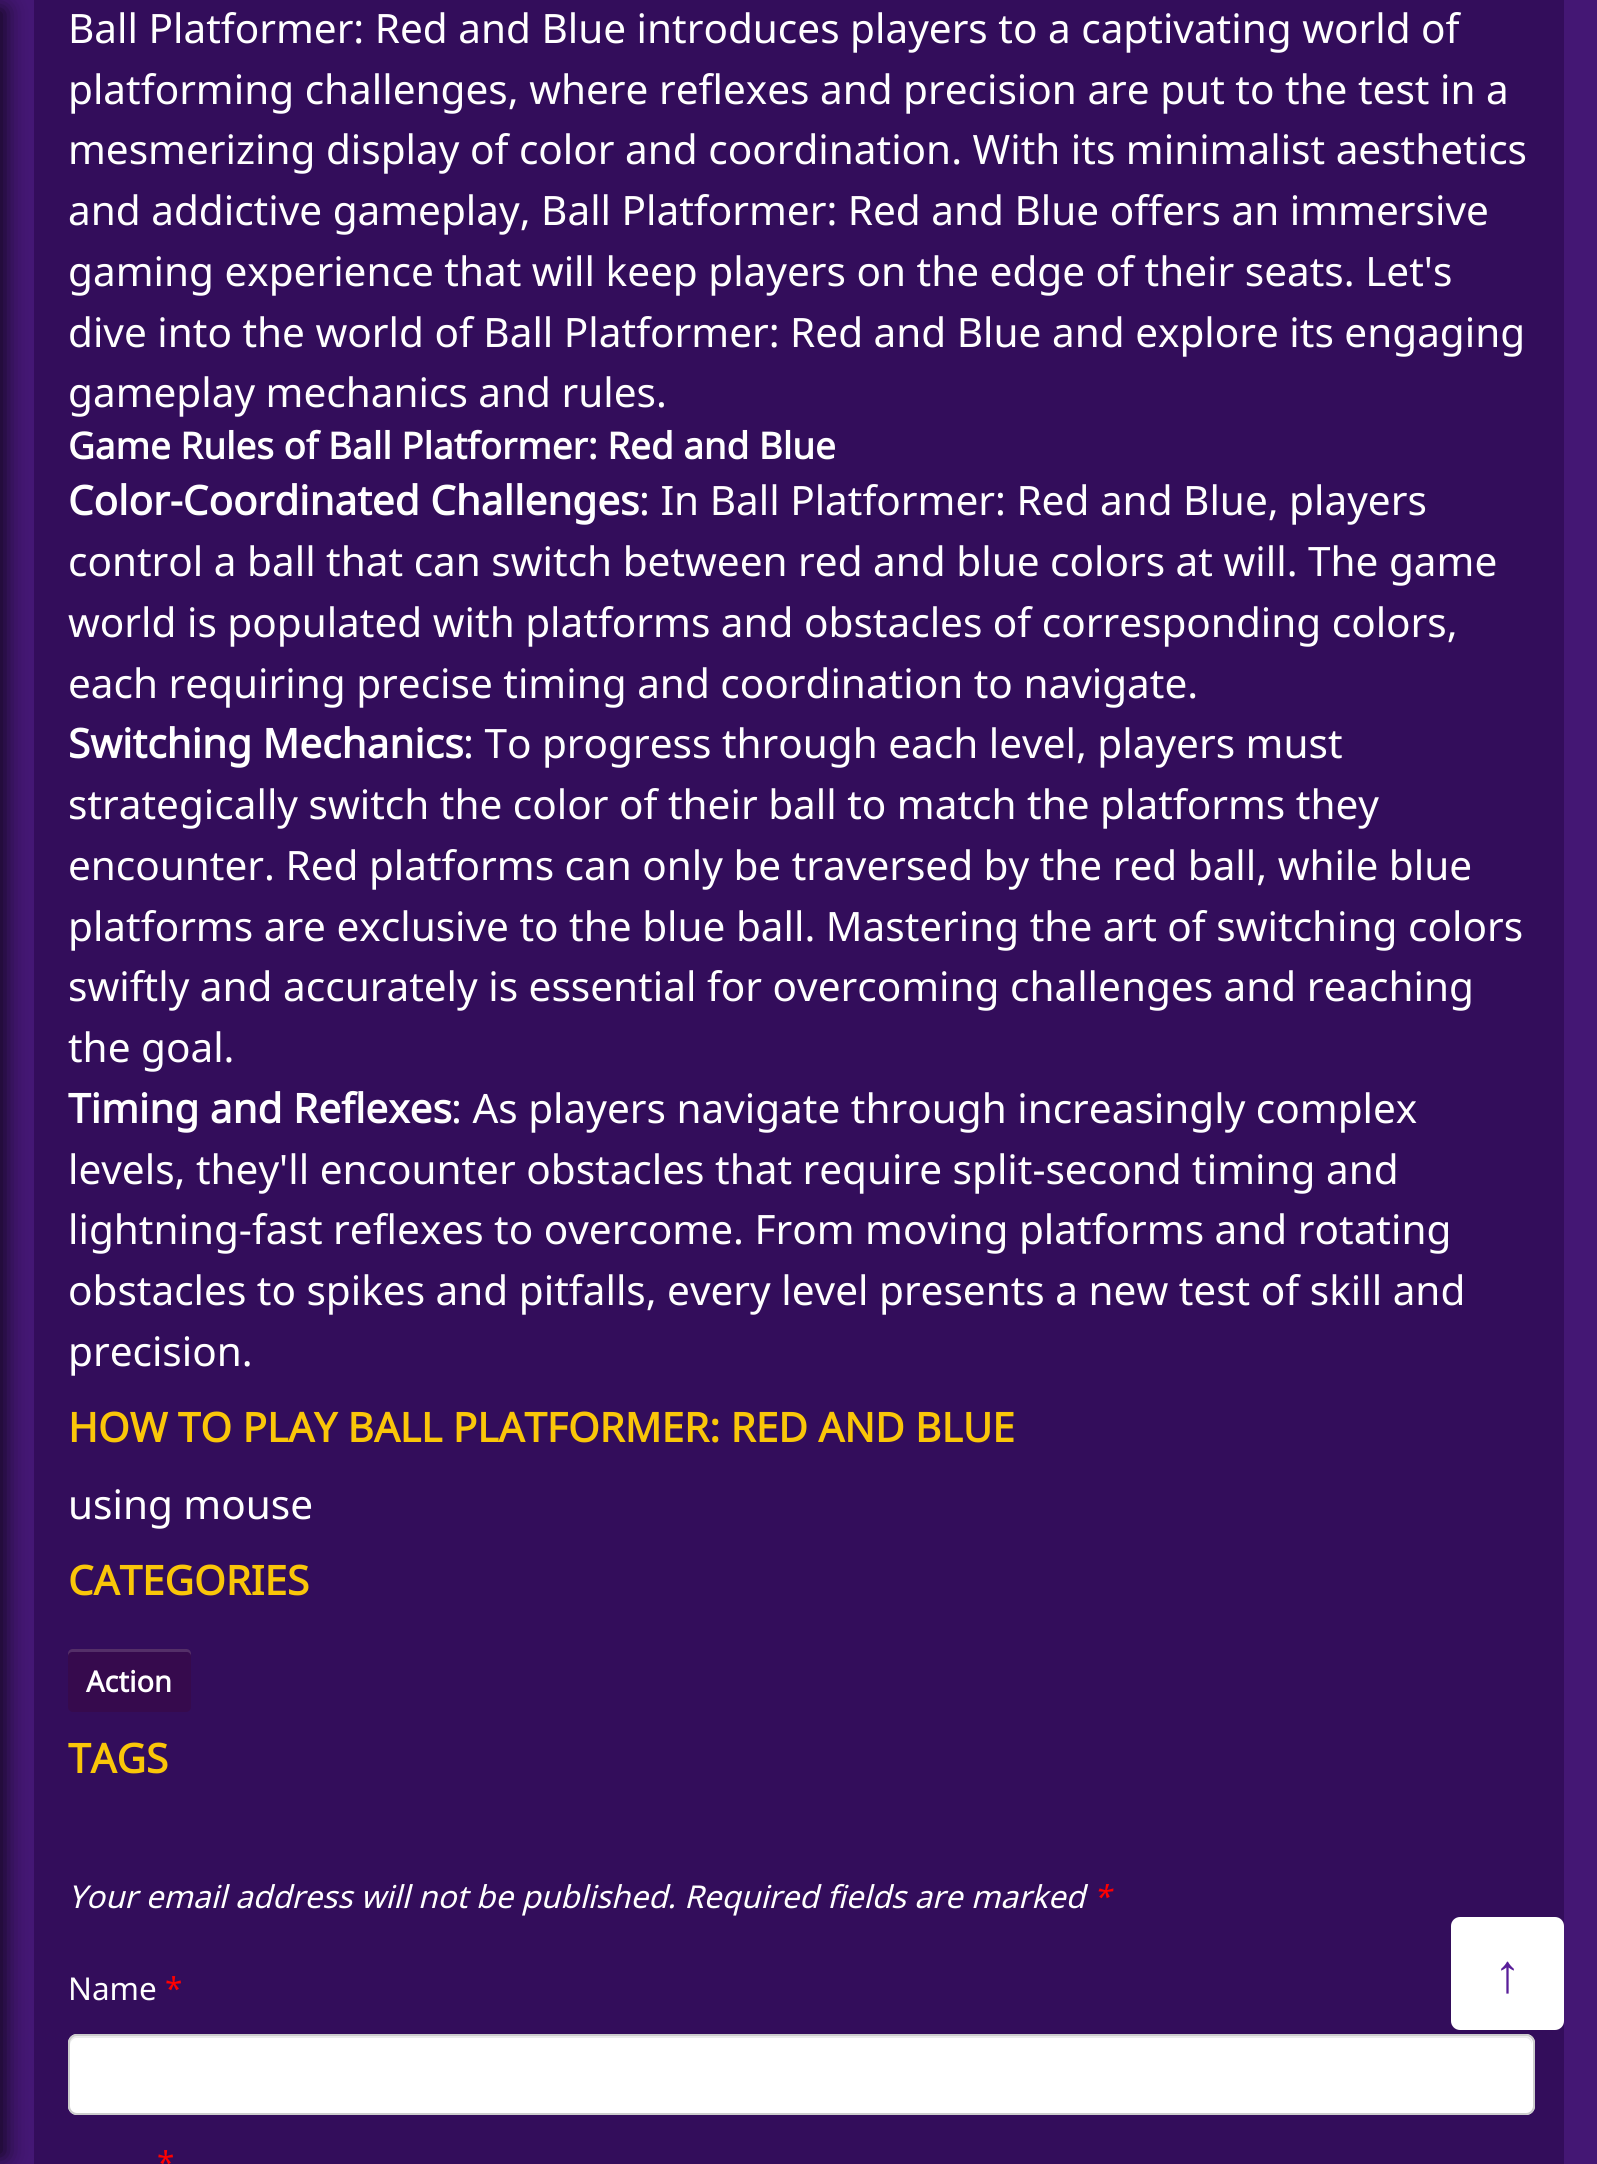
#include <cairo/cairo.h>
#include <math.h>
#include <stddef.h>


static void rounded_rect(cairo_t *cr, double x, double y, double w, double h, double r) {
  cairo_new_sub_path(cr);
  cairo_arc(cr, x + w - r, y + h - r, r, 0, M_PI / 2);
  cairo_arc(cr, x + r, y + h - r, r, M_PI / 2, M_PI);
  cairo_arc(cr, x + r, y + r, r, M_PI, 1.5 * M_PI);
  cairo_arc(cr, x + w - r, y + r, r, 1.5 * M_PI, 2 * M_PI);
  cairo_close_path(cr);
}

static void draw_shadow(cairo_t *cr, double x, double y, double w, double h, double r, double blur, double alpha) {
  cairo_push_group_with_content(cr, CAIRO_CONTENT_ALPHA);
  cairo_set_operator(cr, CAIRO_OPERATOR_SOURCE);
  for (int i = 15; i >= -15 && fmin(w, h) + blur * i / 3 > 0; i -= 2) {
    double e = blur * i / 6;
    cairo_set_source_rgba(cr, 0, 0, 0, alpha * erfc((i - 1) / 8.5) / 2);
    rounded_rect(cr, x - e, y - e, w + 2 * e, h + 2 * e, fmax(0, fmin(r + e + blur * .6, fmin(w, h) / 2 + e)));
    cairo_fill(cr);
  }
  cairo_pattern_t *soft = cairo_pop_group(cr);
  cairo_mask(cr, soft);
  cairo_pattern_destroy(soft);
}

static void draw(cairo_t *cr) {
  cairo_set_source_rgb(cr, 68 / 255.0, 23 / 255.0, 116 / 255.0);
  cairo_paint(cr);
  cairo_set_source_rgb(cr, 51 / 255.0, 13 / 255.0, 91 / 255.0);
  cairo_rectangle(cr, 34, 0, 1530, 2164);
  cairo_fill(cr);
  cairo_set_source_rgb(cr, 0, 0, 0);
  draw_shadow(cr, -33, 9, 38, 2147, 0, 11, 0.75);
  cairo_set_source_rgb(cr, 54 / 255.0, 10 / 255.0, 77 / 255.0);
  rounded_rect(cr, 68, 1649, 123, 63, 5);
  cairo_fill(cr);
  cairo_set_source_rgba(cr, 1, 1, 1, 0.15);
  cairo_new_path(cr);
  cairo_move_to(cr, 72, 1652);
  cairo_line_to(cr, 187, 1652);
  cairo_curve_to(cr, 189, 1652, 191, 1654, 191, 1656);
  cairo_line_to(cr, 191, 1654);
  cairo_curve_to(cr, 191, 1651, 189, 1649, 186, 1649);
  cairo_line_to(cr, 73, 1649);
  cairo_curve_to(cr, 70, 1649, 68, 1651, 68, 1654);
  cairo_line_to(cr, 68, 1656);
  cairo_curve_to(cr, 68, 1654, 70, 1652, 72, 1652);
  cairo_close_path(cr);
  cairo_fill(cr);
  cairo_set_source_rgb(cr, 1, 1, 1);
  rounded_rect(cr, 68, 2034, 1467, 81, 9);
  cairo_fill(cr);
  cairo_set_source_rgb(cr, 236 / 255.0, 236 / 255.0, 236 / 255.0);
  cairo_new_path(cr);
  cairo_move_to(cr, 76, 2038);
  cairo_line_to(cr, 1526, 2038);
  cairo_curve_to(cr, 1529, 2038, 1532, 2042, 1532, 2045);
  cairo_line_to(cr, 1532, 2043);
  cairo_curve_to(cr, 1532, 2039, 1529, 2036, 1525, 2036);
  cairo_line_to(cr, 77, 2036);
  cairo_curve_to(cr, 73, 2036, 70, 2039, 70, 2043);
  cairo_line_to(cr, 70, 2045);
  cairo_curve_to(cr, 70, 2042, 73, 2038, 76, 2038);
  cairo_close_path(cr);
  cairo_fill(cr);
  rounded_rect(cr, 69, 2035, 1465, 79, 8);
  cairo_set_source_rgb(cr, 204 / 255.0, 204 / 255.0, 204 / 255.0);
  cairo_stroke(cr);
  cairo_set_source_rgb(cr, 1, 1, 1);
  rounded_rect(cr, 1451, 1917, 113, 113, 9);
  cairo_fill(cr);
  cairo_select_font_face(cr, "Noto Sans", CAIRO_FONT_SLANT_NORMAL, CAIRO_FONT_WEIGHT_NORMAL);
  cairo_set_font_size(cr, 40.5);
  cairo_move_to(cr, 68, 43);
  cairo_show_text(cr, "Ball Platformer: Red and Blue introduces players to a captivating world of");
  cairo_move_to(cr, 68, 104);
  cairo_show_text(cr, "platforming challenges, where reflexes and precision are put to the test in a");
  cairo_move_to(cr, 68, 164);
  cairo_show_text(cr, "mesmerizing display of color and coordination. With its minimalist aesthetics");
  cairo_move_to(cr, 68, 225);
  cairo_show_text(cr, "and addictive gameplay, Ball Platformer: Red and Blue offers an immersive");
  cairo_move_to(cr, 68, 286);
  cairo_show_text(cr, "gaming experience that will keep players on the edge of their seats. Let's");
  cairo_move_to(cr, 68, 347);
  cairo_show_text(cr, "dive into the world of Ball Platformer: Red and Blue and explore its engaging");
  cairo_move_to(cr, 68, 407);
  cairo_show_text(cr, "gameplay mechanics and rules.");
  cairo_select_font_face(cr, "Noto Sans", CAIRO_FONT_SLANT_NORMAL, CAIRO_FONT_WEIGHT_BOLD);
  cairo_set_font_size(cr, 36.85);
  cairo_move_to(cr, 68, 459);
  cairo_show_text(cr, "Game Rules of Ball Platformer: Red and Blue");
  cairo_set_font_size(cr, 40.5);
  cairo_move_to(cr, 68, 515);
  cairo_show_text(cr, "Color-Coordinated Challenges");
  cairo_select_font_face(cr, "Noto Sans", CAIRO_FONT_SLANT_NORMAL, CAIRO_FONT_WEIGHT_NORMAL);
  cairo_move_to(cr, 639, 515);
  cairo_show_text(cr, ": In Ball Platformer: Red and Blue, players");
  cairo_move_to(cr, 68, 576);
  cairo_show_text(cr, "control a ball that can switch between red and blue colors at will. The game");
  cairo_move_to(cr, 68, 637);
  cairo_show_text(cr, "world is populated with platforms and obstacles of corresponding colors,");
  cairo_move_to(cr, 68, 698);
  cairo_show_text(cr, "each requiring precise timing and coordination to navigate.");
  cairo_select_font_face(cr, "Noto Sans", CAIRO_FONT_SLANT_NORMAL, CAIRO_FONT_WEIGHT_BOLD);
  cairo_move_to(cr, 68, 758);
  cairo_show_text(cr, "Switching Mechanics");
  cairo_select_font_face(cr, "Noto Sans", CAIRO_FONT_SLANT_NORMAL, CAIRO_FONT_WEIGHT_NORMAL);
  cairo_move_to(cr, 463, 758);
  cairo_show_text(cr, ": To progress through each level, players must");
  cairo_move_to(cr, 68, 819);
  cairo_show_text(cr, "strategically switch the color of their ball to match the platforms they");
  cairo_move_to(cr, 68, 880);
  cairo_show_text(cr, "encounter. Red platforms can only be traversed by the red ball, while blue");
  cairo_move_to(cr, 68, 941);
  cairo_show_text(cr, "platforms are exclusive to the blue ball. Mastering the art of switching colors");
  cairo_move_to(cr, 68, 1001);
  cairo_show_text(cr, "swiftly and accurately is essential for overcoming challenges and reaching");
  cairo_move_to(cr, 68, 1062);
  cairo_show_text(cr, "the goal.");
  cairo_select_font_face(cr, "Noto Sans", CAIRO_FONT_SLANT_NORMAL, CAIRO_FONT_WEIGHT_BOLD);
  cairo_move_to(cr, 68, 1123);
  cairo_show_text(cr, "Timing and Reflexes");
  cairo_select_font_face(cr, "Noto Sans", CAIRO_FONT_SLANT_NORMAL, CAIRO_FONT_WEIGHT_NORMAL);
  cairo_move_to(cr, 451, 1123);
  cairo_show_text(cr, ": As players navigate through increasingly complex");
  cairo_move_to(cr, 68, 1184);
  cairo_show_text(cr, "levels, they'll encounter obstacles that require split-second timing and");
  cairo_move_to(cr, 68, 1244);
  cairo_show_text(cr, "lightning-fast reflexes to overcome. From moving platforms and rotating");
  cairo_move_to(cr, 68, 1305);
  cairo_show_text(cr, "obstacles to spikes and pitfalls, every level presents a new test of skill and");
  cairo_move_to(cr, 68, 1366);
  cairo_show_text(cr, "precision.");
  cairo_select_font_face(cr, "Noto Sans", CAIRO_FONT_SLANT_NORMAL, CAIRO_FONT_WEIGHT_BOLD);
  cairo_set_source_rgb(cr, 250 / 255.0, 198 / 255.0, 9 / 255.0);
  cairo_move_to(cr, 68, 1442);
  cairo_show_text(cr, "HOW TO PLAY BALL PLATFORMER: RED AND BLUE");
  cairo_select_font_face(cr, "Noto Sans", CAIRO_FONT_SLANT_NORMAL, CAIRO_FONT_WEIGHT_NORMAL);
  cairo_set_source_rgb(cr, 1, 1, 1);
  cairo_move_to(cr, 68, 1519);
  cairo_show_text(cr, "using mouse");
  cairo_select_font_face(cr, "Noto Sans", CAIRO_FONT_SLANT_NORMAL, CAIRO_FONT_WEIGHT_BOLD);
  cairo_set_source_rgb(cr, 250 / 255.0, 198 / 255.0, 9 / 255.0);
  cairo_move_to(cr, 68, 1595);
  cairo_show_text(cr, "CATEGORIES");
  cairo_set_font_size(cr, 29);
  cairo_set_source_rgb(cr, 1, 1, 1);
  cairo_move_to(cr, 86, 1692);
  cairo_show_text(cr, "Action");
  cairo_set_font_size(cr, 40.5);
  cairo_set_source_rgb(cr, 250 / 255.0, 198 / 255.0, 9 / 255.0);
  cairo_move_to(cr, 68, 1773);
  cairo_show_text(cr, "TAGS");
  cairo_select_font_face(cr, "Noto Sans", CAIRO_FONT_SLANT_ITALIC, CAIRO_FONT_WEIGHT_NORMAL);
  cairo_set_font_size(cr, 31.5);
  cairo_set_source_rgb(cr, 1, 1, 1);
  cairo_move_to(cr, 68, 1908);
  cairo_show_text(cr, "Your email address will not be published. Required fields are marked");
  cairo_set_source_rgb(cr, 1, 0, 0);
  cairo_move_to(cr, 1093, 1908);
  cairo_show_text(cr, "*");
  cairo_select_font_face(cr, "Noto Sans", CAIRO_FONT_SLANT_NORMAL, CAIRO_FONT_WEIGHT_NORMAL);
  cairo_set_source_rgb(cr, 1, 1, 1);
  cairo_move_to(cr, 68, 2000);
  cairo_show_text(cr, "Name");
  cairo_set_source_rgb(cr, 1, 0, 0);
  cairo_move_to(cr, 165, 2000);
  cairo_show_text(cr, "*");
  cairo_move_to(cr, 157, 2174);
  cairo_show_text(cr, "*");
  cairo_select_font_face(cr, "Liberation Sans", CAIRO_FONT_SLANT_NORMAL, CAIRO_FONT_WEIGHT_NORMAL);
  cairo_set_font_size(cr, 54);
  cairo_set_source_rgb(cr, 89 / 255.0, 30 / 255.0, 153 / 255.0);
  cairo_move_to(cr, 1494, 1992);
  cairo_show_text(cr, "↑");
}

int main(void) {
  cairo_surface_t *surface = cairo_image_surface_create(CAIRO_FORMAT_RGB24, 1597, 2164);
  cairo_t *cr = cairo_create(surface);
  cairo_font_options_t *options = cairo_font_options_create();
  cairo_font_options_set_hint_metrics(options, CAIRO_HINT_METRICS_OFF);
  cairo_font_options_set_hint_style(options, CAIRO_HINT_STYLE_NONE);
  cairo_set_font_options(cr, options);
  cairo_set_miter_limit(cr, 4);
  draw(cr);
  cairo_surface_write_to_png(surface, "out.png");
  cairo_font_options_destroy(options);
  cairo_destroy(cr);
  cairo_surface_destroy(surface);
  return 0;
}
